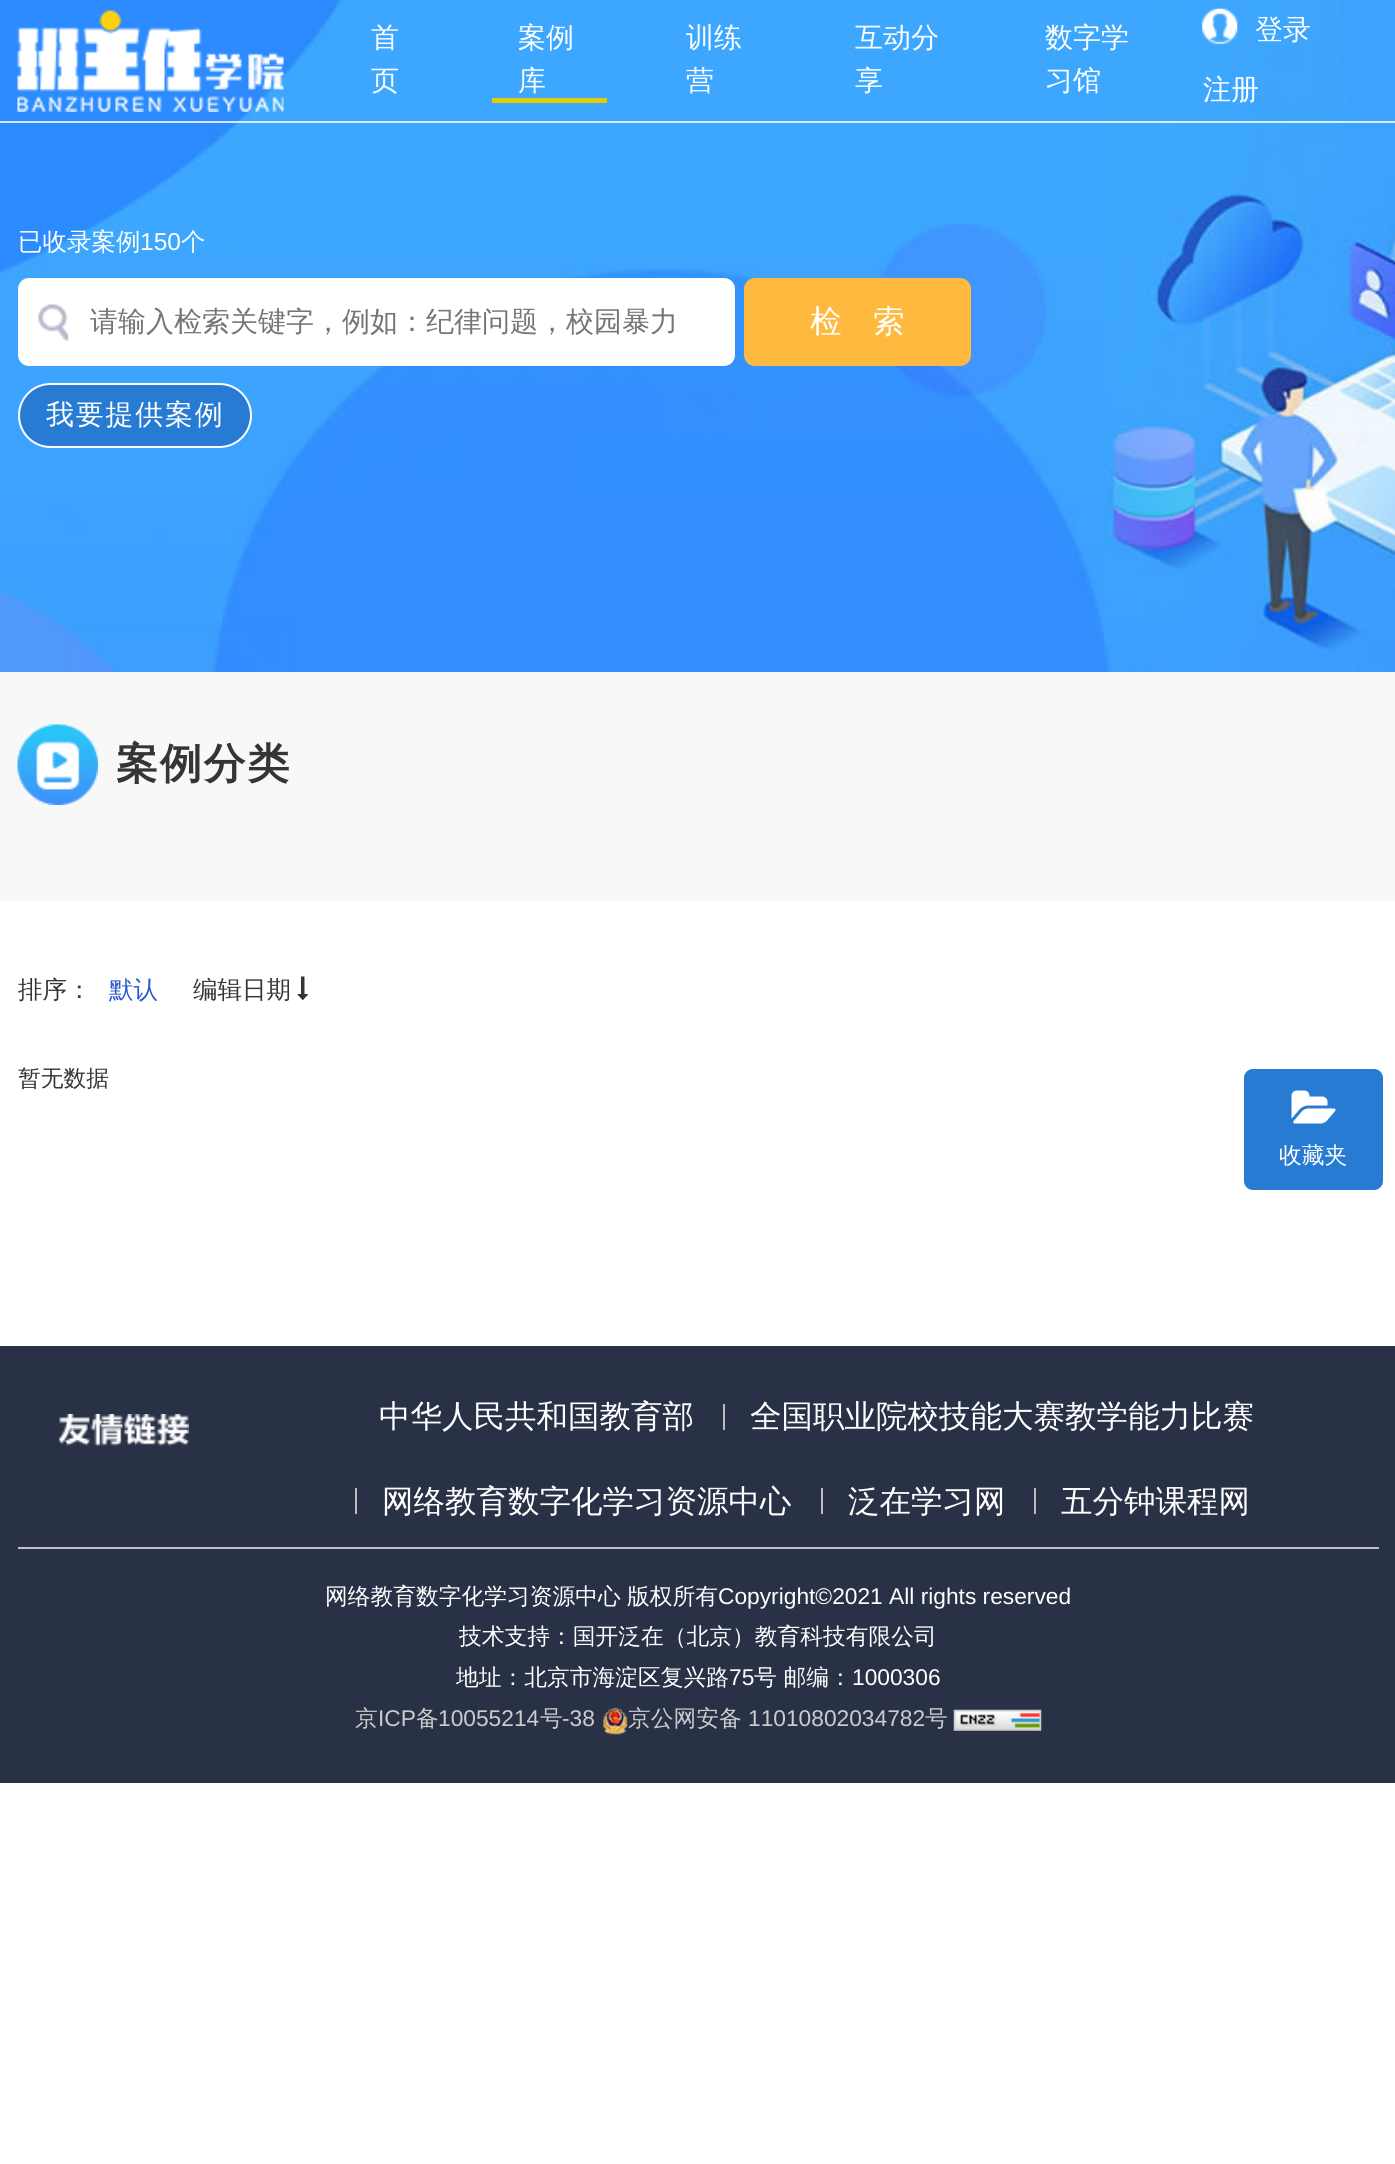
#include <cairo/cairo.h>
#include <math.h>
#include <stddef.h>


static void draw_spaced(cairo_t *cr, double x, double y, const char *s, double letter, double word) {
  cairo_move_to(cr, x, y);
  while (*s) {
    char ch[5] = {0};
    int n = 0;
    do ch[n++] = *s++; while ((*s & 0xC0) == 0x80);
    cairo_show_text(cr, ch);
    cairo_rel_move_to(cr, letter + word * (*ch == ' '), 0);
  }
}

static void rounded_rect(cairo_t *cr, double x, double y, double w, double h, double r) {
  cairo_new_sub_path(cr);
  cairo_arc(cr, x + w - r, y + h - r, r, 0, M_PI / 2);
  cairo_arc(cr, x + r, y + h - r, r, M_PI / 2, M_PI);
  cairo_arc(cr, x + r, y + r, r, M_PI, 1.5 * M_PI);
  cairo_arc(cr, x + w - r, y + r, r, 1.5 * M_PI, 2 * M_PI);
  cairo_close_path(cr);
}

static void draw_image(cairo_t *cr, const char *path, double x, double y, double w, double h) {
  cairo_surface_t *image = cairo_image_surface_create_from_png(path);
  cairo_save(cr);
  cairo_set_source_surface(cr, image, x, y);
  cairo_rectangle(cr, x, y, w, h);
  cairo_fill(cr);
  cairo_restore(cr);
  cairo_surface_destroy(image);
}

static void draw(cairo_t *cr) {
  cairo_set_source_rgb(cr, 1, 1, 1);
  cairo_paint(cr);
  draw_image(cr, "images/1.png", 0, 0, 1395, 672);
  cairo_set_source_rgba(cr, 1, 1, 1, 0.8);
  cairo_rectangle(cr, 0, 121, 1395, 2);
  cairo_fill(cr);
  draw_image(cr, "images/2.png", 17, 10, 267, 102);
  cairo_set_source_rgb(cr, 226 / 255.0, 205 / 255.0, 2 / 255.0);
  cairo_rectangle(cr, 492, 98, 115, 5);
  cairo_fill(cr);
  draw_image(cr, "images/3.png", 1202, 8, 36, 36);
  cairo_set_source_rgb(cr, 1, 1, 1);
  rounded_rect(cr, 18, 278, 717, 88, 11);
  cairo_fill(cr);
  draw_image(cr, "images/4.png", 38, 304, 31, 38);
  cairo_set_source_rgb(cr, 1, 185 / 255.0, 62 / 255.0);
  rounded_rect(cr, 744, 278, 227, 88, 11);
  cairo_fill(cr);
  cairo_set_source_rgb(cr, 39 / 255.0, 123 / 255.0, 210 / 255.0);
  rounded_rect(cr, 19, 384, 232, 63, 31.5);
  cairo_fill_preserve(cr);
  cairo_set_source_rgb(cr, 1, 1, 1);
  cairo_stroke(cr);
  cairo_set_source_rgb(cr, 248 / 255.0, 248 / 255.0, 248 / 255.0);
  cairo_rectangle(cr, 0, 672, 1395, 229);
  cairo_fill(cr);
  draw_image(cr, "images/5.png", 17, 724, 81, 81);
  draw_image(cr, "images/6.png", 297, 976, 11, 25);
  cairo_set_source_rgb(cr, 39 / 255.0, 123 / 255.0, 210 / 255.0);
  rounded_rect(cr, 1244, 1069, 139, 121, 9);
  cairo_fill(cr);
  draw_image(cr, "images/7.png", 1291, 1090, 45, 34);
  cairo_set_source_rgb(cr, 40 / 255.0, 49 / 255.0, 70 / 255.0);
  cairo_rectangle(cr, 0, 1346, 1395, 437);
  cairo_fill(cr);
  cairo_set_source_rgb(cr, 191 / 255.0, 193 / 255.0, 200 / 255.0);
  cairo_rectangle(cr, 18, 1547, 1361, 2);
  cairo_fill(cr);
  draw_image(cr, "images/8.png", 58, 1414, 131, 32);
  cairo_set_source_rgb(cr, 187 / 255.0, 187 / 255.0, 187 / 255.0);
  cairo_rectangle(cr, 723, 1404, 2, 26);
  cairo_fill(cr);
  cairo_rectangle(cr, 355, 1488, 2, 26);
  cairo_fill(cr);
  cairo_rectangle(cr, 821, 1488, 2, 26);
  cairo_fill(cr);
  cairo_rectangle(cr, 1034, 1488, 2, 26);
  cairo_fill(cr);
  draw_image(cr, "images/9.png", 603, 1708, 25, 27);
  draw_image(cr, "images/10.png", 953, 1709, 89, 22);
  cairo_select_font_face(cr, "WenQuanYi Zen Hei Medium", CAIRO_FONT_SLANT_NORMAL, CAIRO_FONT_WEIGHT_NORMAL);
  cairo_set_font_size(cr, 28);
  cairo_set_source_rgb(cr, 1, 1, 1);
  cairo_move_to(cr, 371, 47);
  cairo_show_text(cr, "首");
  cairo_move_to(cr, 371, 90);
  cairo_show_text(cr, "页");
  cairo_move_to(cr, 518, 47);
  cairo_show_text(cr, "案例");
  cairo_move_to(cr, 518, 90);
  cairo_show_text(cr, "库");
  cairo_move_to(cr, 686, 47);
  cairo_show_text(cr, "训练");
  cairo_move_to(cr, 686, 90);
  cairo_show_text(cr, "营");
  cairo_move_to(cr, 855, 47);
  cairo_show_text(cr, "互动分");
  cairo_move_to(cr, 855, 90);
  cairo_show_text(cr, "享");
  cairo_move_to(cr, 1045, 47);
  cairo_show_text(cr, "数字学");
  cairo_move_to(cr, 1045, 90);
  cairo_show_text(cr, "习馆");
  cairo_move_to(cr, 1255, 39);
  cairo_show_text(cr, "登录");
  cairo_move_to(cr, 1203, 99);
  cairo_show_text(cr, "注册");
  cairo_set_font_size(cr, 24.5);
  cairo_move_to(cr, 18, 250);
  cairo_show_text(cr, "已收录案例");
  cairo_select_font_face(cr, "Liberation Sans", CAIRO_FONT_SLANT_NORMAL, CAIRO_FONT_WEIGHT_NORMAL);
  cairo_move_to(cr, 140, 250);
  cairo_show_text(cr, "150");
  cairo_select_font_face(cr, "WenQuanYi Zen Hei Medium", CAIRO_FONT_SLANT_NORMAL, CAIRO_FONT_WEIGHT_NORMAL);
  cairo_move_to(cr, 181, 250);
  cairo_show_text(cr, "个");
  cairo_set_font_size(cr, 28);
  cairo_set_source_rgb(cr, 117 / 255.0, 117 / 255.0, 117 / 255.0);
  cairo_move_to(cr, 90, 331);
  cairo_show_text(cr, "请输入检索关键字，例如：纪律问题，校园暴力");
  cairo_set_font_size(cr, 31.5);
  cairo_set_source_rgb(cr, 1, 1, 1);
  cairo_move_to(cr, 810, 332);
  cairo_show_text(cr, "检　索");
  cairo_set_font_size(cr, 28);
  draw_spaced(cr, 46, 424, "我要提供案例", 1.75, 0);
  cairo_select_font_face(cr, "WenQuanYi Zen Hei", CAIRO_FONT_SLANT_NORMAL, CAIRO_FONT_WEIGHT_BOLD);
  cairo_set_font_size(cr, 42);
  cairo_set_source_rgb(cr, 53 / 255.0, 53 / 255.0, 53 / 255.0);
  draw_spaced(cr, 116, 778, "案例分类", 1.75, 0);
  cairo_select_font_face(cr, "WenQuanYi Zen Hei Medium", CAIRO_FONT_SLANT_NORMAL, CAIRO_FONT_WEIGHT_NORMAL);
  cairo_set_font_size(cr, 24.5);
  cairo_move_to(cr, 18, 998);
  cairo_show_text(cr, "排序：");
  cairo_set_source_rgb(cr, 44 / 255.0, 92 / 255.0, 204 / 255.0);
  cairo_move_to(cr, 109, 998);
  cairo_show_text(cr, "默认");
  cairo_set_source_rgb(cr, 53 / 255.0, 53 / 255.0, 53 / 255.0);
  cairo_move_to(cr, 193, 998);
  cairo_show_text(cr, "编辑日期");
  cairo_set_font_size(cr, 22.75);
  cairo_move_to(cr, 18, 1086);
  cairo_show_text(cr, "暂无数据");
  cairo_set_source_rgb(cr, 1, 1, 1);
  cairo_move_to(cr, 1279, 1163);
  cairo_show_text(cr, "收藏夹");
  cairo_set_font_size(cr, 31.5);
  cairo_move_to(cr, 379, 1427);
  cairo_show_text(cr, "中华人民共和国教育部");
  cairo_move_to(cr, 750, 1427);
  cairo_show_text(cr, "全国职业院校技能大赛教学能力比赛");
  cairo_move_to(cr, 382, 1512);
  cairo_show_text(cr, "网络教育数字化学习资源中心");
  cairo_move_to(cr, 848, 1512);
  cairo_show_text(cr, "泛在学习网");
  cairo_move_to(cr, 1061, 1512);
  cairo_show_text(cr, "五分钟课程网");
  cairo_set_font_size(cr, 22.75);
  cairo_move_to(cr, 325, 1604);
  cairo_show_text(cr, "网络教育数字化学习资源中心");
  cairo_move_to(cr, 627, 1604);
  cairo_show_text(cr, "版权所有");
  cairo_select_font_face(cr, "Liberation Sans", CAIRO_FONT_SLANT_NORMAL, CAIRO_FONT_WEIGHT_NORMAL);
  cairo_move_to(cr, 718, 1604);
  cairo_show_text(cr, "Copyright©2021 All rights reserved");
  cairo_select_font_face(cr, "WenQuanYi Zen Hei Medium", CAIRO_FONT_SLANT_NORMAL, CAIRO_FONT_WEIGHT_NORMAL);
  cairo_move_to(cr, 459, 1644);
  cairo_show_text(cr, "技术支持：国开泛在（北京）教育科技有限公司");
  cairo_move_to(cr, 456, 1685);
  cairo_show_text(cr, "地址：北京市海淀区复兴路");
  cairo_select_font_face(cr, "Liberation Sans", CAIRO_FONT_SLANT_NORMAL, CAIRO_FONT_WEIGHT_NORMAL);
  cairo_move_to(cr, 729, 1685);
  cairo_show_text(cr, "75");
  cairo_select_font_face(cr, "WenQuanYi Zen Hei Medium", CAIRO_FONT_SLANT_NORMAL, CAIRO_FONT_WEIGHT_NORMAL);
  cairo_move_to(cr, 754, 1685);
  cairo_show_text(cr, "号 邮编：");
  cairo_select_font_face(cr, "Liberation Sans", CAIRO_FONT_SLANT_NORMAL, CAIRO_FONT_WEIGHT_NORMAL);
  cairo_move_to(cr, 852, 1685);
  cairo_show_text(cr, "1000306");
  cairo_select_font_face(cr, "WenQuanYi Zen Hei Medium", CAIRO_FONT_SLANT_NORMAL, CAIRO_FONT_WEIGHT_NORMAL);
  cairo_set_source_rgb(cr, 204 / 255.0, 204 / 255.0, 204 / 255.0);
  cairo_move_to(cr, 355, 1726);
  cairo_show_text(cr, "京");
  cairo_select_font_face(cr, "Liberation Sans", CAIRO_FONT_SLANT_NORMAL, CAIRO_FONT_WEIGHT_NORMAL);
  cairo_move_to(cr, 378, 1726);
  cairo_show_text(cr, "ICP");
  cairo_select_font_face(cr, "WenQuanYi Zen Hei Medium", CAIRO_FONT_SLANT_NORMAL, CAIRO_FONT_WEIGHT_NORMAL);
  cairo_move_to(cr, 416, 1726);
  cairo_show_text(cr, "备");
  cairo_select_font_face(cr, "Liberation Sans", CAIRO_FONT_SLANT_NORMAL, CAIRO_FONT_WEIGHT_NORMAL);
  cairo_move_to(cr, 438, 1726);
  cairo_show_text(cr, "10055214");
  cairo_select_font_face(cr, "WenQuanYi Zen Hei Medium", CAIRO_FONT_SLANT_NORMAL, CAIRO_FONT_WEIGHT_NORMAL);
  cairo_move_to(cr, 540, 1726);
  cairo_show_text(cr, "号");
  cairo_select_font_face(cr, "Liberation Sans", CAIRO_FONT_SLANT_NORMAL, CAIRO_FONT_WEIGHT_NORMAL);
  cairo_move_to(cr, 562, 1726);
  cairo_show_text(cr, "-38");
  cairo_select_font_face(cr, "WenQuanYi Zen Hei Medium", CAIRO_FONT_SLANT_NORMAL, CAIRO_FONT_WEIGHT_NORMAL);
  cairo_move_to(cr, 628, 1726);
  cairo_show_text(cr, "京公网安备");
  cairo_select_font_face(cr, "Liberation Sans", CAIRO_FONT_SLANT_NORMAL, CAIRO_FONT_WEIGHT_NORMAL);
  cairo_move_to(cr, 748, 1726);
  cairo_show_text(cr, "11010802034782");
  cairo_select_font_face(cr, "WenQuanYi Zen Hei Medium", CAIRO_FONT_SLANT_NORMAL, CAIRO_FONT_WEIGHT_NORMAL);
  cairo_move_to(cr, 925, 1726);
  cairo_show_text(cr, "号");
}

int main(void) {
  cairo_surface_t *surface = cairo_image_surface_create(CAIRO_FORMAT_RGB24, 1395, 2164);
  cairo_t *cr = cairo_create(surface);
  cairo_font_options_t *options = cairo_font_options_create();
  cairo_font_options_set_hint_metrics(options, CAIRO_HINT_METRICS_OFF);
  cairo_font_options_set_hint_style(options, CAIRO_HINT_STYLE_NONE);
  cairo_set_font_options(cr, options);
  cairo_set_miter_limit(cr, 4);
  draw(cr);
  cairo_surface_write_to_png(surface, "out.png");
  cairo_font_options_destroy(options);
  cairo_destroy(cr);
  cairo_surface_destroy(surface);
  return 0;
}
